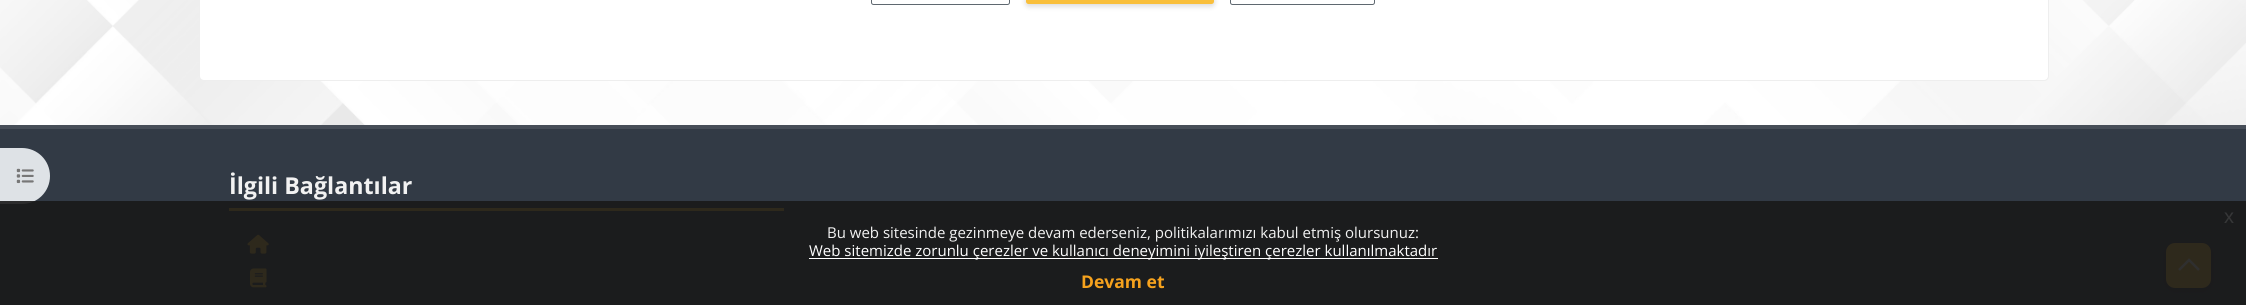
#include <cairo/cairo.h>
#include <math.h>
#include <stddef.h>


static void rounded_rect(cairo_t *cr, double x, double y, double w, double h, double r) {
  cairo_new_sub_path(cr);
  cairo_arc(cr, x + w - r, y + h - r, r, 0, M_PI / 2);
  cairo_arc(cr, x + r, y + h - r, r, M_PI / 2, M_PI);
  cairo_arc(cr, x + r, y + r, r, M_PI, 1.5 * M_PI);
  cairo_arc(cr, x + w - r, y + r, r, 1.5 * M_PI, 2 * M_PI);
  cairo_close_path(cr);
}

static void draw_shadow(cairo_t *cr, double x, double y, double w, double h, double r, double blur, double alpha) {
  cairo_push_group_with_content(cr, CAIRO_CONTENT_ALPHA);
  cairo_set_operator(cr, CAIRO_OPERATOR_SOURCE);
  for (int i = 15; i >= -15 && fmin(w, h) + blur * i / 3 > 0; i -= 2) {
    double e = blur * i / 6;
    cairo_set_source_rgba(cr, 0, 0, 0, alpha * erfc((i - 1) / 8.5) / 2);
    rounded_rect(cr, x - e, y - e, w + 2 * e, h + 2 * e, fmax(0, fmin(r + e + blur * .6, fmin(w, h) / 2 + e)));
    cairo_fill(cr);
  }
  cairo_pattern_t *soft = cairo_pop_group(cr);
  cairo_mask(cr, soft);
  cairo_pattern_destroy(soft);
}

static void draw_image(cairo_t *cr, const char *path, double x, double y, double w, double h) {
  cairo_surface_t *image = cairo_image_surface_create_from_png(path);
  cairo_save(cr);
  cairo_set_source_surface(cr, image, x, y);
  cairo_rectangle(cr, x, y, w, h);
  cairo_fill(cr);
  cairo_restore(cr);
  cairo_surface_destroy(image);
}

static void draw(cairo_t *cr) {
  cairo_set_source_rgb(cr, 1, 1, 1);
  cairo_paint(cr);
  draw_image(cr, "images/1.png", 0, 0, 2246, 125);
  cairo_set_source_rgb(cr, 1, 1, 1);
  rounded_rect(cr, 199, -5, 1850, 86, 5);
  cairo_fill(cr);
  rounded_rect(cr, 199.5, -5.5, 1849, 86, 4.5);
  cairo_set_source_rgba(cr, 0, 0, 0, 0.07);
  cairo_set_line_width(cr, 1);
  cairo_stroke(cr);
  rounded_rect(cr, 871.5, -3.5, 138, 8, 2);
  cairo_set_source_rgb(cr, 95 / 255.0, 104 / 255.0, 112 / 255.0);
  cairo_stroke(cr);
  cairo_set_source_rgb(cr, 0, 0, 0);
  draw_shadow(cr, 1026, -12, 188, 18, 2.5, 3, 0.16);
  cairo_set_source_rgb(cr, 249 / 255.0, 191 / 255.0, 59 / 255.0);
  rounded_rect(cr, 1026, -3, 188, 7, 2.5);
  cairo_fill(cr);
  rounded_rect(cr, 1230.5, -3.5, 144, 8, 2);
  cairo_set_source_rgb(cr, 95 / 255.0, 104 / 255.0, 112 / 255.0);
  cairo_stroke(cr);
  cairo_set_source_rgb(cr, 50 / 255.0, 58 / 255.0, 69 / 255.0);
  cairo_rectangle(cr, 0, 129, 2246, 176);
  cairo_fill(cr);
  cairo_set_source_rgb(cr, 222 / 255.0, 226 / 255.0, 230 / 255.0);
  cairo_new_path(cr);
  cairo_move_to(cr, 0, 148);
  cairo_line_to(cr, 22, 148);
  cairo_curve_to(cr, 37.5, 148, 50, 160.5, 50, 176);
  cairo_curve_to(cr, 50, 191.5, 37.5, 204, 22, 204);
  cairo_line_to(cr, 0, 204);
  cairo_close_path(cr);
  cairo_fill(cr);
  draw_image(cr, "images/2.png", 16, 168, 18, 16);
  cairo_set_source_rgb(cr, 71 / 255.0, 78 / 255.0, 88 / 255.0);
  cairo_rectangle(cr, 0, 125, 2246, 4);
  cairo_fill(cr);
  cairo_set_source_rgb(cr, 249 / 255.0, 191 / 255.0, 59 / 255.0);
  cairo_rectangle(cr, 229, 208, 555, 3);
  cairo_fill(cr);
  draw_image(cr, "images/3.png", 247, 234, 22, 20);
  draw_image(cr, "images/4.png", 250, 268, 17, 20);
  cairo_set_source_rgb(cr, 0, 0, 0);
  draw_shadow(cr, 2166, 245, 45, 45, 9, 3, 0.16);
  cairo_set_source_rgb(cr, 249 / 255.0, 191 / 255.0, 59 / 255.0);
  rounded_rect(cr, 2166, 243, 45, 45, 9);
  cairo_fill(cr);
  cairo_new_path(cr);
  cairo_move_to(cr, 2179, 270);
  cairo_line_to(cr, 2189, 260);
  cairo_line_to(cr, 2199, 270);
  cairo_set_source_rgb(cr, 1, 1, 1);
  cairo_set_line_width(cr, 2.5);
  cairo_stroke(cr);
  cairo_set_source_rgba(cr, 25 / 255.0, 25 / 255.0, 25 / 255.0, 0.9);
  cairo_rectangle(cr, 0, 201, 2246, 104);
  cairo_fill(cr);
  cairo_set_source_rgb(cr, 1, 1, 1);
  cairo_rectangle(cr, 809, 258, 629, 1);
  cairo_fill(cr);
  cairo_select_font_face(cr, "Open Sans", CAIRO_FONT_SLANT_NORMAL, CAIRO_FONT_WEIGHT_BOLD);
  cairo_set_font_size(cr, 23.25);
  cairo_set_source_rgb(cr, 242 / 255.0, 242 / 255.0, 242 / 255.0);
  cairo_move_to(cr, 229, 194);
  cairo_show_text(cr, "İlgili Bağlantılar");
  cairo_select_font_face(cr, "Liberation Sans", CAIRO_FONT_SLANT_NORMAL, CAIRO_FONT_WEIGHT_NORMAL);
  cairo_set_font_size(cr, 20);
  cairo_set_source_rgb(cr, 54 / 255.0, 55 / 255.0, 56 / 255.0);
  cairo_move_to(cr, 2224, 223);
  cairo_show_text(cr, "x");
  cairo_select_font_face(cr, "Open Sans", CAIRO_FONT_SLANT_NORMAL, CAIRO_FONT_WEIGHT_NORMAL);
  cairo_set_font_size(cr, 15);
  cairo_set_source_rgb(cr, 242 / 255.0, 242 / 255.0, 242 / 255.0);
  cairo_move_to(cr, 827, 238);
  cairo_show_text(cr, "Bu web sitesinde gezinmeye devam ederseniz, politikalarımızı kabul etmiş olursunuz:");
  cairo_set_source_rgb(cr, 1, 1, 1);
  cairo_move_to(cr, 809, 256);
  cairo_show_text(cr, "Web sitemizde zorunlu çerezler ve kullanıcı deneyimini iyileştiren çerezler kullanılmaktadır");
  cairo_select_font_face(cr, "Open Sans", CAIRO_FONT_SLANT_NORMAL, CAIRO_FONT_WEIGHT_BOLD);
  cairo_set_font_size(cr, 17.5);
  cairo_set_source_rgb(cr, 246 / 255.0, 162 / 255.0, 29 / 255.0);
  cairo_move_to(cr, 1081, 288);
  cairo_show_text(cr, "Devam et");
}

int main(void) {
  cairo_surface_t *surface = cairo_image_surface_create(CAIRO_FORMAT_RGB24, 2246, 305);
  cairo_t *cr = cairo_create(surface);
  cairo_font_options_t *options = cairo_font_options_create();
  cairo_font_options_set_hint_metrics(options, CAIRO_HINT_METRICS_OFF);
  cairo_font_options_set_hint_style(options, CAIRO_HINT_STYLE_NONE);
  cairo_set_font_options(cr, options);
  cairo_set_miter_limit(cr, 4);
  draw(cr);
  cairo_surface_write_to_png(surface, "out.png");
  cairo_font_options_destroy(options);
  cairo_destroy(cr);
  cairo_surface_destroy(surface);
  return 0;
}
